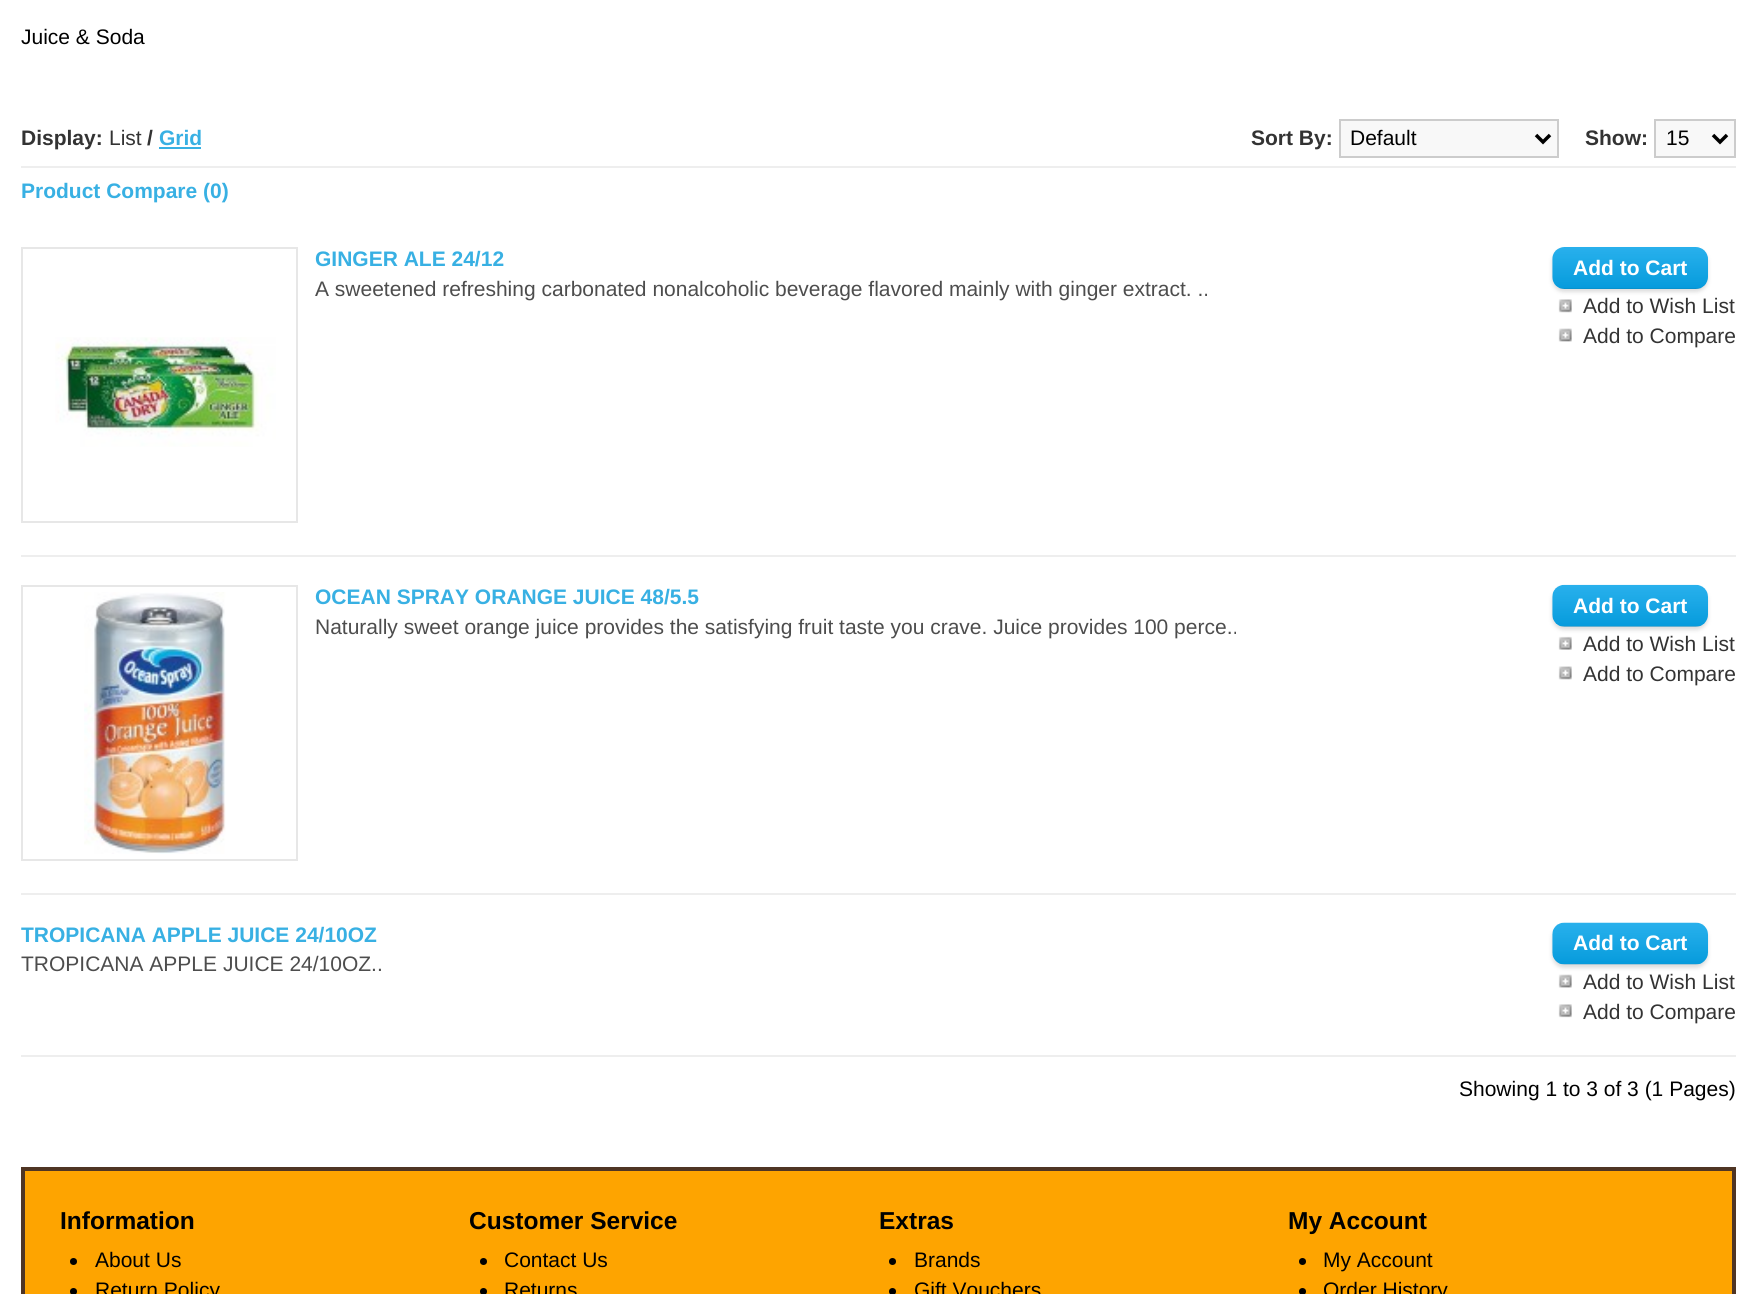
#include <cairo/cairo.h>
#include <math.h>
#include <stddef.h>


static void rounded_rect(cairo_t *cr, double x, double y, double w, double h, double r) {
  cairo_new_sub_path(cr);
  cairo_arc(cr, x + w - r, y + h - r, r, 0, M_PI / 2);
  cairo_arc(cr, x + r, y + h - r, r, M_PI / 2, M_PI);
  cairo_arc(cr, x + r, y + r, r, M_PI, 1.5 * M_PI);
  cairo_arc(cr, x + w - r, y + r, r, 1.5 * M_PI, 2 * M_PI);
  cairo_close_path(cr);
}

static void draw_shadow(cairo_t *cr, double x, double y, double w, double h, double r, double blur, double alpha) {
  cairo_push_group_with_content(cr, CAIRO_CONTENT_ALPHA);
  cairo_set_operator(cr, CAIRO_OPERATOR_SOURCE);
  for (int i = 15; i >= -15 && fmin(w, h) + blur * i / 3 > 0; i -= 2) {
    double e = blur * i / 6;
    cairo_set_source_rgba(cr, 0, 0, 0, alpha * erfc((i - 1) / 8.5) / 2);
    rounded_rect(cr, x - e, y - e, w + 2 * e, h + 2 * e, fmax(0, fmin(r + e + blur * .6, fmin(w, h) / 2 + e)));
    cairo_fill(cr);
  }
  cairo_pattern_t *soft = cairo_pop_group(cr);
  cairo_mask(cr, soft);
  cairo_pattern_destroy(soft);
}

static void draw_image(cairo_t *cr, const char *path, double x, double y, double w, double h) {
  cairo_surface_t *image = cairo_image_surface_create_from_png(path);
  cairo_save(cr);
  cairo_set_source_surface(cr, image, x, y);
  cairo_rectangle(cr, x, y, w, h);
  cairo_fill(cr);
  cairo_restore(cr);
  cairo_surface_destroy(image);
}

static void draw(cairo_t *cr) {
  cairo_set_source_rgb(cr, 1, 1, 1);
  cairo_paint(cr);
  cairo_set_source_rgb(cr, 238 / 255.0, 238 / 255.0, 238 / 255.0);
  cairo_rectangle(cr, 21, 166, 1715, 2);
  cairo_fill(cr);
  cairo_set_source_rgb(cr, 56 / 255.0, 176 / 255.0, 227 / 255.0);
  cairo_rectangle(cr, 159, 147, 42, 2);
  cairo_fill(cr);
  cairo_set_source_rgb(cr, 248 / 255.0, 248 / 255.0, 248 / 255.0);
  cairo_rectangle(cr, 1340, 120, 218, 37);
  cairo_fill_preserve(cr);
  cairo_set_source_rgb(cr, 204 / 255.0, 204 / 255.0, 204 / 255.0);
  cairo_stroke(cr);
  cairo_new_path(cr);
  cairo_move_to(cr, 1536, 135);
  cairo_line_to(cr, 1543, 142);
  cairo_line_to(cr, 1550, 135);
  cairo_set_source_rgb(cr, 0, 0, 0);
  cairo_set_line_width(cr, 3.5);
  cairo_stroke(cr);
  cairo_set_source_rgb(cr, 248 / 255.0, 248 / 255.0, 248 / 255.0);
  cairo_rectangle(cr, 1655, 120, 80, 37);
  cairo_fill_preserve(cr);
  cairo_set_source_rgb(cr, 204 / 255.0, 204 / 255.0, 204 / 255.0);
  cairo_set_line_width(cr, 2);
  cairo_stroke(cr);
  cairo_new_path(cr);
  cairo_move_to(cr, 1713, 135);
  cairo_line_to(cr, 1720, 142);
  cairo_line_to(cr, 1727, 135);
  cairo_set_source_rgb(cr, 0, 0, 0);
  cairo_set_line_width(cr, 3.5);
  cairo_stroke(cr);
  cairo_rectangle(cr, 22, 248, 275, 274);
  cairo_set_source_rgb(cr, 231 / 255.0, 231 / 255.0, 231 / 255.0);
  cairo_set_line_width(cr, 2);
  cairo_stroke(cr);
  draw_image(cr, "images/1.png", 55, 337, 221, 110);
  cairo_set_source_rgb(cr, 221 / 255.0, 221 / 255.0, 221 / 255.0);
  draw_shadow(cr, 1552, 250, 156, 42, 12, 2, 1);
  draw_image(cr, "images/2.png", 1552, 247, 156, 42);
  draw_image(cr, "images/3.png", 1558, 299, 14, 14);
  draw_image(cr, "images/4.png", 1558, 328, 14, 14);
  cairo_set_source_rgb(cr, 238 / 255.0, 238 / 255.0, 238 / 255.0);
  cairo_rectangle(cr, 21, 555, 1715, 2);
  cairo_fill(cr);
  cairo_rectangle(cr, 22, 586, 275, 274);
  cairo_set_source_rgb(cr, 231 / 255.0, 231 / 255.0, 231 / 255.0);
  cairo_stroke(cr);
  draw_image(cr, "images/5.png", 84, 592, 142, 262);
  draw_image(cr, "images/7.png", 1558, 636, 14, 14);
  cairo_set_source_rgb(cr, 221 / 255.0, 221 / 255.0, 221 / 255.0);
  draw_shadow(cr, 1552, 588, 156, 42, 12, 2, 1);
  draw_image(cr, "images/6.png", 1552, 584, 156, 43);
  draw_image(cr, "images/8.png", 1558, 666, 14, 14);
  cairo_set_source_rgb(cr, 238 / 255.0, 238 / 255.0, 238 / 255.0);
  cairo_rectangle(cr, 21, 893, 1715, 2);
  cairo_fill(cr);
  draw_image(cr, "images/10.png", 1558, 974, 14, 14);
  cairo_set_source_rgb(cr, 221 / 255.0, 221 / 255.0, 221 / 255.0);
  draw_shadow(cr, 1552, 926, 156, 42, 12, 2, 1);
  draw_image(cr, "images/9.png", 1552, 922, 156, 43);
  draw_image(cr, "images/11.png", 1558, 1004, 14, 14);
  cairo_set_source_rgb(cr, 238 / 255.0, 238 / 255.0, 238 / 255.0);
  cairo_rectangle(cr, 21, 1055, 1715, 2);
  cairo_fill(cr);
  cairo_set_source_rgb(cr, 254 / 255.0, 164 / 255.0, 0);
  cairo_rectangle(cr, 23, 1169, 1711, 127);
  cairo_fill_preserve(cr);
  cairo_set_source_rgb(cr, 79 / 255.0, 53 / 255.0, 36 / 255.0);
  cairo_set_line_width(cr, 4);
  cairo_stroke(cr);
  cairo_set_source_rgb(cr, 0, 0, 0);
  cairo_arc(cr, 73.5, 1261.5, 3.5, 0, 2 * M_PI);
  cairo_fill(cr);
  cairo_arc(cr, 73.5, 1291.5, 3.5, 0, 2 * M_PI);
  cairo_fill(cr);
  cairo_arc(cr, 483.5, 1261.5, 3.5, 0, 2 * M_PI);
  cairo_fill(cr);
  cairo_arc(cr, 483.5, 1291.5, 3.5, 0, 2 * M_PI);
  cairo_fill(cr);
  cairo_arc(cr, 892.5, 1261.5, 3.5, 0, 2 * M_PI);
  cairo_fill(cr);
  cairo_arc(cr, 892.5, 1291.5, 3.5, 0, 2 * M_PI);
  cairo_fill(cr);
  cairo_arc(cr, 1302.5, 1261.5, 3.5, 0, 2 * M_PI);
  cairo_fill(cr);
  cairo_arc(cr, 1302.5, 1291.5, 3.5, 0, 2 * M_PI);
  cairo_fill(cr);
  cairo_select_font_face(cr, "Liberation Sans", CAIRO_FONT_SLANT_NORMAL, CAIRO_FONT_WEIGHT_NORMAL);
  cairo_set_font_size(cr, 21);
  cairo_move_to(cr, 21, 44);
  cairo_show_text(cr, "Juice & Soda");
  cairo_select_font_face(cr, "Liberation Sans", CAIRO_FONT_SLANT_NORMAL, CAIRO_FONT_WEIGHT_BOLD);
  cairo_set_source_rgb(cr, 51 / 255.0, 51 / 255.0, 51 / 255.0);
  cairo_move_to(cr, 21, 145);
  cairo_show_text(cr, "Display:");
  cairo_select_font_face(cr, "Liberation Sans", CAIRO_FONT_SLANT_NORMAL, CAIRO_FONT_WEIGHT_NORMAL);
  cairo_move_to(cr, 109, 145);
  cairo_show_text(cr, "List");
  cairo_select_font_face(cr, "Liberation Sans", CAIRO_FONT_SLANT_NORMAL, CAIRO_FONT_WEIGHT_BOLD);
  cairo_move_to(cr, 147, 145);
  cairo_show_text(cr, "/");
  cairo_set_source_rgb(cr, 56 / 255.0, 176 / 255.0, 227 / 255.0);
  cairo_move_to(cr, 159, 145);
  cairo_show_text(cr, "Grid");
  cairo_set_source_rgb(cr, 51 / 255.0, 51 / 255.0, 51 / 255.0);
  cairo_move_to(cr, 1251, 145);
  cairo_show_text(cr, "Sort By:");
  cairo_select_font_face(cr, "Liberation Sans", CAIRO_FONT_SLANT_NORMAL, CAIRO_FONT_WEIGHT_NORMAL);
  cairo_set_source_rgb(cr, 0, 0, 0);
  cairo_move_to(cr, 1350, 145);
  cairo_show_text(cr, "Default");
  cairo_select_font_face(cr, "Liberation Sans", CAIRO_FONT_SLANT_NORMAL, CAIRO_FONT_WEIGHT_BOLD);
  cairo_set_source_rgb(cr, 51 / 255.0, 51 / 255.0, 51 / 255.0);
  cairo_move_to(cr, 1585, 145);
  cairo_show_text(cr, "Show:");
  cairo_select_font_face(cr, "Liberation Sans", CAIRO_FONT_SLANT_NORMAL, CAIRO_FONT_WEIGHT_NORMAL);
  cairo_set_source_rgb(cr, 0, 0, 0);
  cairo_move_to(cr, 1666, 145);
  cairo_show_text(cr, "15");
  cairo_select_font_face(cr, "Liberation Sans", CAIRO_FONT_SLANT_NORMAL, CAIRO_FONT_WEIGHT_BOLD);
  cairo_set_source_rgb(cr, 56 / 255.0, 176 / 255.0, 227 / 255.0);
  cairo_move_to(cr, 21, 198);
  cairo_show_text(cr, "Product Compare (0)");
  cairo_move_to(cr, 315, 266);
  cairo_show_text(cr, "GINGER ALE 24/12");
  cairo_select_font_face(cr, "Liberation Sans", CAIRO_FONT_SLANT_NORMAL, CAIRO_FONT_WEIGHT_NORMAL);
  cairo_set_source_rgb(cr, 77 / 255.0, 77 / 255.0, 77 / 255.0);
  cairo_move_to(cr, 315, 296);
  cairo_show_text(cr, "A sweetened refreshing carbonated nonalcoholic beverage flavored mainly with ginger extract. ..");
  cairo_select_font_face(cr, "Liberation Sans", CAIRO_FONT_SLANT_NORMAL, CAIRO_FONT_WEIGHT_BOLD);
  cairo_set_source_rgb(cr, 1, 1, 1);
  cairo_move_to(cr, 1573, 275);
  cairo_show_text(cr, "Add to Cart");
  cairo_select_font_face(cr, "Liberation Sans", CAIRO_FONT_SLANT_NORMAL, CAIRO_FONT_WEIGHT_NORMAL);
  cairo_set_source_rgb(cr, 51 / 255.0, 51 / 255.0, 51 / 255.0);
  cairo_move_to(cr, 1583, 313);
  cairo_show_text(cr, "Add to Wish List");
  cairo_move_to(cr, 1583, 343);
  cairo_show_text(cr, "Add to Compare");
  cairo_select_font_face(cr, "Liberation Sans", CAIRO_FONT_SLANT_NORMAL, CAIRO_FONT_WEIGHT_BOLD);
  cairo_set_source_rgb(cr, 56 / 255.0, 176 / 255.0, 227 / 255.0);
  cairo_move_to(cr, 315, 604);
  cairo_show_text(cr, "OCEAN SPRAY ORANGE JUICE 48/5.5");
  cairo_select_font_face(cr, "Liberation Sans", CAIRO_FONT_SLANT_NORMAL, CAIRO_FONT_WEIGHT_NORMAL);
  cairo_set_source_rgb(cr, 77 / 255.0, 77 / 255.0, 77 / 255.0);
  cairo_move_to(cr, 315, 634);
  cairo_show_text(cr, "Naturally sweet orange juice provides the satisfying fruit taste you crave. Juice provides 100 perce..");
  cairo_select_font_face(cr, "Liberation Sans", CAIRO_FONT_SLANT_NORMAL, CAIRO_FONT_WEIGHT_BOLD);
  cairo_set_source_rgb(cr, 1, 1, 1);
  cairo_move_to(cr, 1573, 613);
  cairo_show_text(cr, "Add to Cart");
  cairo_select_font_face(cr, "Liberation Sans", CAIRO_FONT_SLANT_NORMAL, CAIRO_FONT_WEIGHT_NORMAL);
  cairo_set_source_rgb(cr, 51 / 255.0, 51 / 255.0, 51 / 255.0);
  cairo_move_to(cr, 1583, 651);
  cairo_show_text(cr, "Add to Wish List");
  cairo_move_to(cr, 1583, 681);
  cairo_show_text(cr, "Add to Compare");
  cairo_select_font_face(cr, "Liberation Sans", CAIRO_FONT_SLANT_NORMAL, CAIRO_FONT_WEIGHT_BOLD);
  cairo_set_source_rgb(cr, 56 / 255.0, 176 / 255.0, 227 / 255.0);
  cairo_move_to(cr, 21, 942);
  cairo_show_text(cr, "TROPICANA APPLE JUICE 24/10OZ");
  cairo_select_font_face(cr, "Liberation Sans", CAIRO_FONT_SLANT_NORMAL, CAIRO_FONT_WEIGHT_NORMAL);
  cairo_set_source_rgb(cr, 77 / 255.0, 77 / 255.0, 77 / 255.0);
  cairo_move_to(cr, 21, 971);
  cairo_show_text(cr, "TROPICANA APPLE JUICE 24/10OZ..");
  cairo_select_font_face(cr, "Liberation Sans", CAIRO_FONT_SLANT_NORMAL, CAIRO_FONT_WEIGHT_BOLD);
  cairo_set_source_rgb(cr, 1, 1, 1);
  cairo_move_to(cr, 1573, 950);
  cairo_show_text(cr, "Add to Cart");
  cairo_select_font_face(cr, "Liberation Sans", CAIRO_FONT_SLANT_NORMAL, CAIRO_FONT_WEIGHT_NORMAL);
  cairo_set_source_rgb(cr, 51 / 255.0, 51 / 255.0, 51 / 255.0);
  cairo_move_to(cr, 1583, 989);
  cairo_show_text(cr, "Add to Wish List");
  cairo_move_to(cr, 1583, 1019);
  cairo_show_text(cr, "Add to Compare");
  cairo_set_source_rgb(cr, 0, 0, 0);
  cairo_move_to(cr, 1459, 1096);
  cairo_show_text(cr, "Showing 1 to 3 of 3 (1 Pages)");
  cairo_select_font_face(cr, "Liberation Sans", CAIRO_FONT_SLANT_NORMAL, CAIRO_FONT_WEIGHT_BOLD);
  cairo_set_font_size(cr, 24.5);
  cairo_move_to(cr, 60, 1229);
  cairo_show_text(cr, "Information");
  cairo_select_font_face(cr, "Liberation Sans", CAIRO_FONT_SLANT_NORMAL, CAIRO_FONT_WEIGHT_NORMAL);
  cairo_set_font_size(cr, 21);
  cairo_move_to(cr, 95, 1267);
  cairo_show_text(cr, "About Us");
  cairo_move_to(cr, 95, 1297);
  cairo_show_text(cr, "Return Policy");
  cairo_select_font_face(cr, "Liberation Sans", CAIRO_FONT_SLANT_NORMAL, CAIRO_FONT_WEIGHT_BOLD);
  cairo_set_font_size(cr, 24.5);
  cairo_move_to(cr, 469, 1229);
  cairo_show_text(cr, "Customer Service");
  cairo_select_font_face(cr, "Liberation Sans", CAIRO_FONT_SLANT_NORMAL, CAIRO_FONT_WEIGHT_NORMAL);
  cairo_set_font_size(cr, 21);
  cairo_move_to(cr, 504, 1267);
  cairo_show_text(cr, "Contact Us");
  cairo_move_to(cr, 504, 1297);
  cairo_show_text(cr, "Returns");
  cairo_select_font_face(cr, "Liberation Sans", CAIRO_FONT_SLANT_NORMAL, CAIRO_FONT_WEIGHT_BOLD);
  cairo_set_font_size(cr, 24.5);
  cairo_move_to(cr, 879, 1229);
  cairo_show_text(cr, "Extras");
  cairo_select_font_face(cr, "Liberation Sans", CAIRO_FONT_SLANT_NORMAL, CAIRO_FONT_WEIGHT_NORMAL);
  cairo_set_font_size(cr, 21);
  cairo_move_to(cr, 914, 1267);
  cairo_show_text(cr, "Brands");
  cairo_move_to(cr, 914, 1297);
  cairo_show_text(cr, "Gift Vouchers");
  cairo_select_font_face(cr, "Liberation Sans", CAIRO_FONT_SLANT_NORMAL, CAIRO_FONT_WEIGHT_BOLD);
  cairo_set_font_size(cr, 24.5);
  cairo_move_to(cr, 1288, 1229);
  cairo_show_text(cr, "My Account");
  cairo_select_font_face(cr, "Liberation Sans", CAIRO_FONT_SLANT_NORMAL, CAIRO_FONT_WEIGHT_NORMAL);
  cairo_set_font_size(cr, 21);
  cairo_move_to(cr, 1323, 1267);
  cairo_show_text(cr, "My Account");
  cairo_move_to(cr, 1323, 1297);
  cairo_show_text(cr, "Order History");
}

int main(void) {
  cairo_surface_t *surface = cairo_image_surface_create(CAIRO_FORMAT_RGB24, 1756, 1294);
  cairo_t *cr = cairo_create(surface);
  cairo_font_options_t *options = cairo_font_options_create();
  cairo_font_options_set_hint_metrics(options, CAIRO_HINT_METRICS_OFF);
  cairo_font_options_set_hint_style(options, CAIRO_HINT_STYLE_NONE);
  cairo_set_font_options(cr, options);
  cairo_set_miter_limit(cr, 4);
  draw(cr);
  cairo_surface_write_to_png(surface, "out.png");
  cairo_font_options_destroy(options);
  cairo_destroy(cr);
  cairo_surface_destroy(surface);
  return 0;
}
